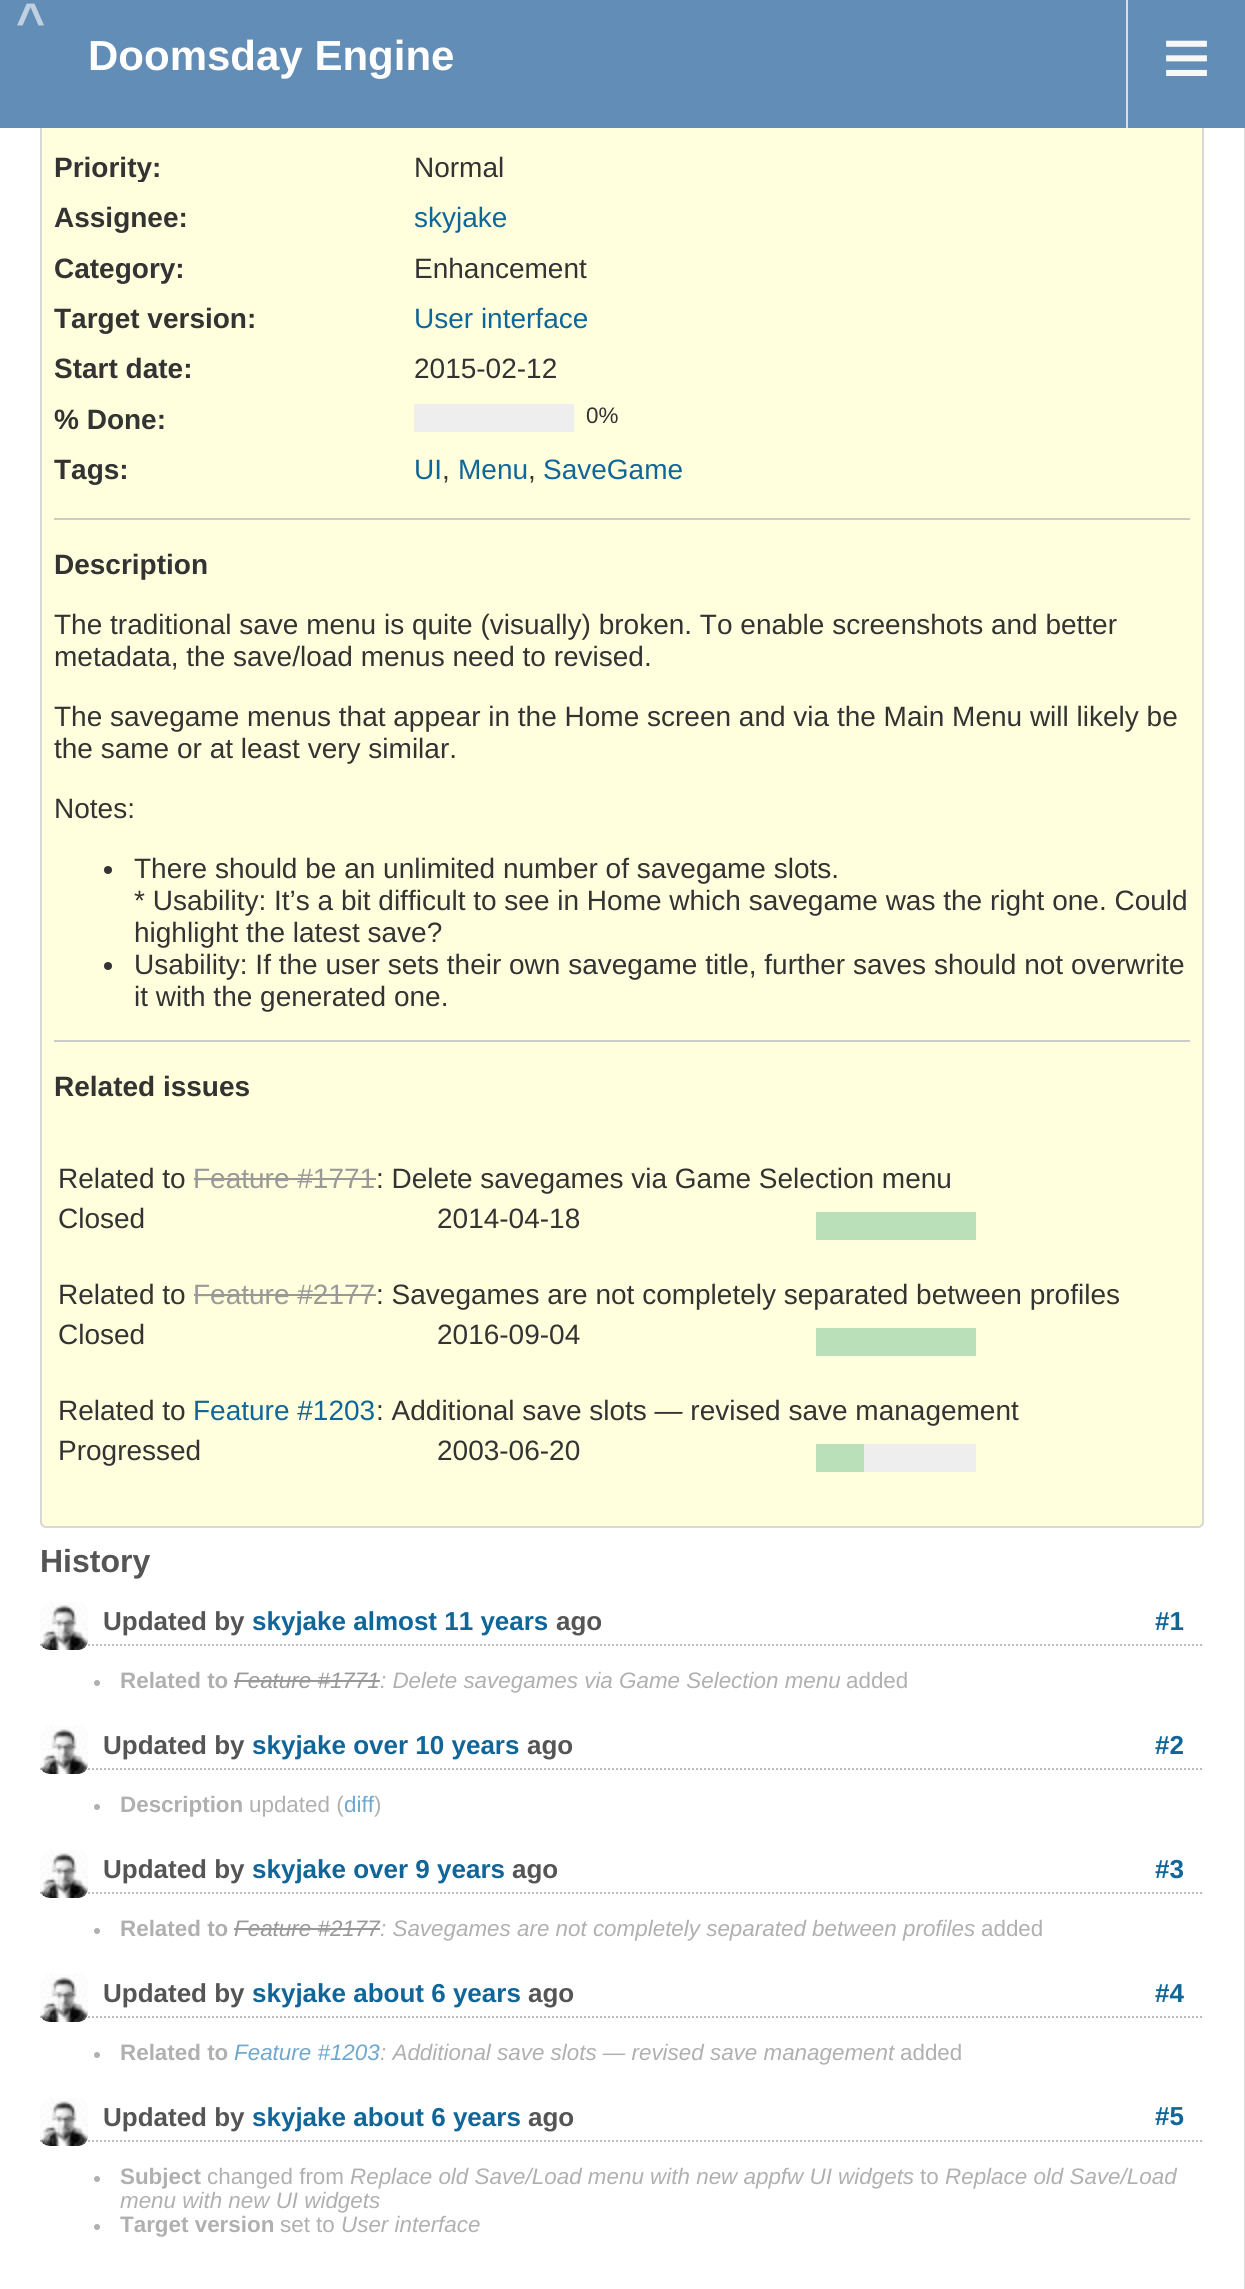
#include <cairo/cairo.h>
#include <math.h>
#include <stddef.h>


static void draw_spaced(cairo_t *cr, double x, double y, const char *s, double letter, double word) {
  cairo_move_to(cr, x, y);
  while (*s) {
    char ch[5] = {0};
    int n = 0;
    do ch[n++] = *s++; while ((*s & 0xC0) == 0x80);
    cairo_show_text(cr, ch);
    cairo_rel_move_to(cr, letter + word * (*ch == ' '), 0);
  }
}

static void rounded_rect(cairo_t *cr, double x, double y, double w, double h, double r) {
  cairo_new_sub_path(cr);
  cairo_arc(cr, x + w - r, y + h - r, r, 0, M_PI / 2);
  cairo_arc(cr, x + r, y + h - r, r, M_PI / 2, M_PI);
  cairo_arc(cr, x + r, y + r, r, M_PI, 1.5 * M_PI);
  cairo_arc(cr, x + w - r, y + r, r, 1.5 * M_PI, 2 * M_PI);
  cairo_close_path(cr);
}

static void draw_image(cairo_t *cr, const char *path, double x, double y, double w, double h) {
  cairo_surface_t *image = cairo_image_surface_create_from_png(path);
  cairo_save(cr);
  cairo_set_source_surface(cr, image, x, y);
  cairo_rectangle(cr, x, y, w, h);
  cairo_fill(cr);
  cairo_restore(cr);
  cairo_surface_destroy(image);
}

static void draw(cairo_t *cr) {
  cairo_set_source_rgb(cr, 1, 1, 1);
  cairo_paint(cr);
  cairo_set_source_rgb(cr, 1, 1, 221 / 255.0);
  rounded_rect(cr, 41, -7, 1162, 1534, 5);
  cairo_fill_preserve(cr);
  cairo_set_source_rgb(cr, 215 / 255.0, 215 / 255.0, 215 / 255.0);
  cairo_stroke(cr);
  cairo_set_source_rgb(cr, 98 / 255.0, 141 / 255.0, 182 / 255.0);
  cairo_rectangle(cr, 0, 0, 1245, 128);
  cairo_fill(cr);
  cairo_set_source_rgb(cr, 221 / 255.0, 221 / 255.0, 221 / 255.0);
  cairo_rectangle(cr, 1126, 0, 2, 128);
  cairo_fill(cr);
  cairo_rectangle(cr, 1244, 128, 1, 2161);
  cairo_fill(cr);
  cairo_set_source_rgb(cr, 238 / 255.0, 238 / 255.0, 238 / 255.0);
  cairo_rectangle(cr, 414, 404, 160, 28);
  cairo_fill(cr);
  cairo_set_source_rgb(cr, 204 / 255.0, 204 / 255.0, 204 / 255.0);
  cairo_rectangle(cr, 54, 518, 1136, 2);
  cairo_fill(cr);
  cairo_set_source_rgb(cr, 51 / 255.0, 51 / 255.0, 51 / 255.0);
  cairo_arc(cr, 108, 870, 4, 0, 2 * M_PI);
  cairo_fill(cr);
  cairo_arc(cr, 108, 966, 4, 0, 2 * M_PI);
  cairo_fill(cr);
  cairo_set_source_rgb(cr, 204 / 255.0, 204 / 255.0, 204 / 255.0);
  cairo_rectangle(cr, 54, 1040, 1136, 2);
  cairo_fill(cr);
  cairo_set_source_rgb(cr, 153 / 255.0, 153 / 255.0, 153 / 255.0);
  cairo_rectangle(cr, 194, 1178, 182, 2);
  cairo_fill(cr);
  cairo_set_source_rgb(cr, 186 / 255.0, 224 / 255.0, 186 / 255.0);
  cairo_rectangle(cr, 816, 1212, 160, 28);
  cairo_fill(cr);
  cairo_set_source_rgb(cr, 153 / 255.0, 153 / 255.0, 153 / 255.0);
  cairo_rectangle(cr, 194, 1294, 182, 2);
  cairo_fill(cr);
  cairo_set_source_rgb(cr, 186 / 255.0, 224 / 255.0, 186 / 255.0);
  cairo_rectangle(cr, 816, 1328, 160, 28);
  cairo_fill(cr);
  cairo_rectangle(cr, 816, 1444, 48, 28);
  cairo_fill(cr);
  cairo_set_source_rgb(cr, 238 / 255.0, 238 / 255.0, 238 / 255.0);
  cairo_rectangle(cr, 864, 1444, 112, 28);
  cairo_fill(cr);
  cairo_new_path(cr);
  cairo_move_to(cr, 40, 1645);
  cairo_line_to(cr, 1204, 1645);
  cairo_set_source_rgb(cr, 187 / 255.0, 187 / 255.0, 187 / 255.0);
  cairo_set_dash(cr, (double[]){2, 2}, 2, 0);
  cairo_stroke(cr);
  draw_image(cr, "images/1.png", 40, 1602, 48, 48);
  cairo_set_source_rgb(cr, 176 / 255.0, 176 / 255.0, 176 / 255.0);
  cairo_arc(cr, 97, 1683, 3, 0, 2 * M_PI);
  cairo_fill(cr);
  cairo_set_source_rgb(cr, 153 / 255.0, 153 / 255.0, 153 / 255.0);
  cairo_rectangle(cr, 234, 1680, 146, 2);
  cairo_fill(cr);
  cairo_new_path(cr);
  cairo_move_to(cr, 40, 1769);
  cairo_line_to(cr, 1204, 1769);
  cairo_set_source_rgb(cr, 187 / 255.0, 187 / 255.0, 187 / 255.0);
  cairo_stroke(cr);
  draw_image(cr, "images/2.png", 40, 1726, 48, 48);
  cairo_set_source_rgb(cr, 176 / 255.0, 176 / 255.0, 176 / 255.0);
  cairo_arc(cr, 97, 1807, 3, 0, 2 * M_PI);
  cairo_fill(cr);
  cairo_new_path(cr);
  cairo_move_to(cr, 40, 1893);
  cairo_line_to(cr, 1204, 1893);
  cairo_set_source_rgb(cr, 187 / 255.0, 187 / 255.0, 187 / 255.0);
  cairo_stroke(cr);
  draw_image(cr, "images/1.png", 40, 1850, 48, 48);
  cairo_set_source_rgb(cr, 176 / 255.0, 176 / 255.0, 176 / 255.0);
  cairo_arc(cr, 97, 1931, 3, 0, 2 * M_PI);
  cairo_fill(cr);
  cairo_set_source_rgb(cr, 153 / 255.0, 153 / 255.0, 153 / 255.0);
  cairo_rectangle(cr, 234, 1928, 146, 2);
  cairo_fill(cr);
  cairo_new_path(cr);
  cairo_move_to(cr, 40, 2017);
  cairo_line_to(cr, 1204, 2017);
  cairo_set_source_rgb(cr, 187 / 255.0, 187 / 255.0, 187 / 255.0);
  cairo_stroke(cr);
  draw_image(cr, "images/3.png", 40, 1974, 48, 48);
  cairo_set_source_rgb(cr, 176 / 255.0, 176 / 255.0, 176 / 255.0);
  cairo_arc(cr, 97, 2055, 3, 0, 2 * M_PI);
  cairo_fill(cr);
  cairo_new_path(cr);
  cairo_move_to(cr, 40, 2141);
  cairo_line_to(cr, 1204, 2141);
  cairo_set_source_rgb(cr, 187 / 255.0, 187 / 255.0, 187 / 255.0);
  cairo_stroke(cr);
  draw_image(cr, "images/3.png", 40, 2098, 48, 48);
  cairo_set_source_rgb(cr, 176 / 255.0, 176 / 255.0, 176 / 255.0);
  cairo_arc(cr, 97, 2179, 3, 0, 2 * M_PI);
  cairo_fill(cr);
  cairo_arc(cr, 97, 2227, 3, 0, 2 * M_PI);
  cairo_fill(cr);
  cairo_select_font_face(cr, "Liberation Sans", CAIRO_FONT_SLANT_NORMAL, CAIRO_FONT_WEIGHT_BOLD);
  cairo_set_font_size(cr, 50);
  cairo_set_source_rgb(cr, 192 / 255.0, 209 / 255.0, 226 / 255.0);
  draw_spaced(cr, 16, 38, "^", 7, 0);
  cairo_set_font_size(cr, 42);
  cairo_set_source_rgb(cr, 1, 1, 1);
  cairo_move_to(cr, 88, 70);
  cairo_show_text(cr, "Doomsday Engine");
  cairo_select_font_face(cr, "Liberation Sans", CAIRO_FONT_SLANT_NORMAL, CAIRO_FONT_WEIGHT_NORMAL);
  cairo_set_font_size(cr, 84);
  cairo_set_source_rgb(cr, 248 / 255.0, 248 / 255.0, 248 / 255.0);
  cairo_move_to(cr, 1162, 86);
  cairo_show_text(cr, "≡");
  cairo_save(cr);
  cairo_rectangle(cr, 54, 150, 340, 32);
  cairo_clip(cr);
  cairo_select_font_face(cr, "Liberation Sans", CAIRO_FONT_SLANT_NORMAL, CAIRO_FONT_WEIGHT_BOLD);
  cairo_set_font_size(cr, 28);
  cairo_set_source_rgb(cr, 51 / 255.0, 51 / 255.0, 51 / 255.0);
  cairo_move_to(cr, 54, 177);
  cairo_show_text(cr, "Priority:");
  cairo_restore(cr);
  cairo_set_font_size(cr, 28);
  cairo_set_source_rgb(cr, 51 / 255.0, 51 / 255.0, 51 / 255.0);
  cairo_move_to(cr, 414, 177);
  cairo_show_text(cr, "Normal");
  cairo_select_font_face(cr, "Liberation Sans", CAIRO_FONT_SLANT_NORMAL, CAIRO_FONT_WEIGHT_BOLD);
  cairo_move_to(cr, 54, 227);
  cairo_show_text(cr, "Assignee:");
  cairo_select_font_face(cr, "Liberation Sans", CAIRO_FONT_SLANT_NORMAL, CAIRO_FONT_WEIGHT_NORMAL);
  cairo_set_source_rgb(cr, 17 / 255.0, 102 / 255.0, 153 / 255.0);
  cairo_move_to(cr, 414, 227);
  cairo_show_text(cr, "skyjake");
  cairo_select_font_face(cr, "Liberation Sans", CAIRO_FONT_SLANT_NORMAL, CAIRO_FONT_WEIGHT_BOLD);
  cairo_set_source_rgb(cr, 51 / 255.0, 51 / 255.0, 51 / 255.0);
  cairo_move_to(cr, 54, 278);
  cairo_show_text(cr, "Category:");
  cairo_select_font_face(cr, "Liberation Sans", CAIRO_FONT_SLANT_NORMAL, CAIRO_FONT_WEIGHT_NORMAL);
  cairo_move_to(cr, 414, 278);
  cairo_show_text(cr, "Enhancement");
  cairo_select_font_face(cr, "Liberation Sans", CAIRO_FONT_SLANT_NORMAL, CAIRO_FONT_WEIGHT_BOLD);
  cairo_move_to(cr, 54, 328);
  cairo_show_text(cr, "Target version:");
  cairo_select_font_face(cr, "Liberation Sans", CAIRO_FONT_SLANT_NORMAL, CAIRO_FONT_WEIGHT_NORMAL);
  cairo_set_source_rgb(cr, 17 / 255.0, 102 / 255.0, 153 / 255.0);
  cairo_move_to(cr, 414, 328);
  cairo_show_text(cr, "User interface");
  cairo_select_font_face(cr, "Liberation Sans", CAIRO_FONT_SLANT_NORMAL, CAIRO_FONT_WEIGHT_BOLD);
  cairo_set_source_rgb(cr, 51 / 255.0, 51 / 255.0, 51 / 255.0);
  cairo_move_to(cr, 54, 378);
  cairo_show_text(cr, "Start date:");
  cairo_select_font_face(cr, "Liberation Sans", CAIRO_FONT_SLANT_NORMAL, CAIRO_FONT_WEIGHT_NORMAL);
  cairo_move_to(cr, 414, 378);
  cairo_show_text(cr, "2015-02-12");
  cairo_select_font_face(cr, "Liberation Sans", CAIRO_FONT_SLANT_NORMAL, CAIRO_FONT_WEIGHT_BOLD);
  cairo_move_to(cr, 54, 429);
  cairo_show_text(cr, "% Done:");
  cairo_select_font_face(cr, "Liberation Sans", CAIRO_FONT_SLANT_NORMAL, CAIRO_FONT_WEIGHT_NORMAL);
  cairo_set_font_size(cr, 22.4);
  cairo_move_to(cr, 586, 423);
  cairo_show_text(cr, "0%");
  cairo_select_font_face(cr, "Liberation Sans", CAIRO_FONT_SLANT_NORMAL, CAIRO_FONT_WEIGHT_BOLD);
  cairo_set_font_size(cr, 28);
  cairo_move_to(cr, 54, 479);
  cairo_show_text(cr, "Tags:");
  cairo_select_font_face(cr, "Liberation Sans", CAIRO_FONT_SLANT_NORMAL, CAIRO_FONT_WEIGHT_NORMAL);
  cairo_set_source_rgb(cr, 17 / 255.0, 102 / 255.0, 153 / 255.0);
  cairo_move_to(cr, 414, 479);
  cairo_show_text(cr, "UI");
  cairo_set_source_rgb(cr, 51 / 255.0, 51 / 255.0, 51 / 255.0);
  cairo_move_to(cr, 442, 479);
  cairo_show_text(cr, ",");
  cairo_set_source_rgb(cr, 17 / 255.0, 102 / 255.0, 153 / 255.0);
  cairo_move_to(cr, 458, 479);
  cairo_show_text(cr, "Menu");
  cairo_set_source_rgb(cr, 51 / 255.0, 51 / 255.0, 51 / 255.0);
  cairo_move_to(cr, 528, 479);
  cairo_show_text(cr, ",");
  cairo_set_source_rgb(cr, 17 / 255.0, 102 / 255.0, 153 / 255.0);
  cairo_move_to(cr, 543, 479);
  cairo_show_text(cr, "SaveGame");
  cairo_select_font_face(cr, "Liberation Sans", CAIRO_FONT_SLANT_NORMAL, CAIRO_FONT_WEIGHT_BOLD);
  cairo_set_source_rgb(cr, 51 / 255.0, 51 / 255.0, 51 / 255.0);
  cairo_move_to(cr, 54, 574);
  cairo_show_text(cr, "Description");
  cairo_select_font_face(cr, "Liberation Sans", CAIRO_FONT_SLANT_NORMAL, CAIRO_FONT_WEIGHT_NORMAL);
  cairo_move_to(cr, 54, 634);
  cairo_show_text(cr, "The traditional save menu is quite (visually) broken. To enable screenshots and better");
  cairo_move_to(cr, 54, 666);
  cairo_show_text(cr, "metadata, the save/load menus need to revised.");
  cairo_move_to(cr, 54, 726);
  cairo_show_text(cr, "The savegame menus that appear in the Home screen and via the Main Menu will likely be");
  cairo_move_to(cr, 54, 758);
  cairo_show_text(cr, "the same or at least very similar.");
  cairo_move_to(cr, 54, 818);
  cairo_show_text(cr, "Notes:");
  cairo_move_to(cr, 134, 878);
  cairo_show_text(cr, "There should be an unlimited number of savegame slots.");
  cairo_move_to(cr, 134, 910);
  cairo_show_text(cr, "* Usability: It’s a bit difficult to see in Home which savegame was the right one. Could");
  cairo_move_to(cr, 134, 942);
  cairo_show_text(cr, "highlight the latest save?");
  cairo_move_to(cr, 134, 974);
  cairo_show_text(cr, "Usability: If the user sets their own savegame title, further saves should not overwrite");
  cairo_move_to(cr, 134, 1006);
  cairo_show_text(cr, "it with the generated one.");
  cairo_select_font_face(cr, "Liberation Sans", CAIRO_FONT_SLANT_NORMAL, CAIRO_FONT_WEIGHT_BOLD);
  cairo_move_to(cr, 54, 1096);
  cairo_show_text(cr, "Related issues");
  cairo_select_font_face(cr, "Liberation Sans", CAIRO_FONT_SLANT_NORMAL, CAIRO_FONT_WEIGHT_NORMAL);
  cairo_move_to(cr, 58, 1188);
  cairo_show_text(cr, "Related to");
  cairo_set_source_rgb(cr, 153 / 255.0, 153 / 255.0, 153 / 255.0);
  cairo_move_to(cr, 193, 1188);
  cairo_show_text(cr, "Feature #1771");
  cairo_set_source_rgb(cr, 51 / 255.0, 51 / 255.0, 51 / 255.0);
  cairo_move_to(cr, 376, 1188);
  cairo_show_text(cr, ": Delete savegames via Game Selection menu");
  cairo_move_to(cr, 58, 1228);
  cairo_show_text(cr, "Closed");
  cairo_move_to(cr, 437, 1228);
  cairo_show_text(cr, "2014-04-18");
  cairo_move_to(cr, 58, 1304);
  cairo_show_text(cr, "Related to");
  cairo_set_source_rgb(cr, 153 / 255.0, 153 / 255.0, 153 / 255.0);
  cairo_move_to(cr, 193, 1304);
  cairo_show_text(cr, "Feature #2177");
  cairo_set_source_rgb(cr, 51 / 255.0, 51 / 255.0, 51 / 255.0);
  cairo_move_to(cr, 376, 1304);
  cairo_show_text(cr, ": Savegames are not completely separated between profiles");
  cairo_move_to(cr, 58, 1344);
  cairo_show_text(cr, "Closed");
  cairo_move_to(cr, 437, 1344);
  cairo_show_text(cr, "2016-09-04");
  cairo_move_to(cr, 58, 1420);
  cairo_show_text(cr, "Related to");
  cairo_set_source_rgb(cr, 17 / 255.0, 102 / 255.0, 153 / 255.0);
  cairo_move_to(cr, 193, 1420);
  cairo_show_text(cr, "Feature #1203");
  cairo_set_source_rgb(cr, 51 / 255.0, 51 / 255.0, 51 / 255.0);
  cairo_move_to(cr, 376, 1420);
  cairo_show_text(cr, ": Additional save slots — revised save management");
  cairo_move_to(cr, 58, 1460);
  cairo_show_text(cr, "Progressed");
  cairo_move_to(cr, 437, 1460);
  cairo_show_text(cr, "2003-06-20");
  cairo_select_font_face(cr, "Liberation Sans", CAIRO_FONT_SLANT_NORMAL, CAIRO_FONT_WEIGHT_BOLD);
  cairo_set_font_size(cr, 32);
  cairo_set_source_rgb(cr, 85 / 255.0, 85 / 255.0, 85 / 255.0);
  cairo_move_to(cr, 40, 1572);
  cairo_show_text(cr, "History");
  cairo_set_font_size(cr, 26);
  cairo_move_to(cr, 103, 1630);
  cairo_show_text(cr, "Updated by");
  cairo_set_source_rgb(cr, 17 / 255.0, 102 / 255.0, 153 / 255.0);
  cairo_move_to(cr, 252, 1630);
  cairo_show_text(cr, "skyjake almost 11 years");
  cairo_set_source_rgb(cr, 85 / 255.0, 85 / 255.0, 85 / 255.0);
  cairo_move_to(cr, 556, 1630);
  cairo_show_text(cr, "ago");
  cairo_set_source_rgb(cr, 17 / 255.0, 102 / 255.0, 153 / 255.0);
  cairo_move_to(cr, 1155, 1630);
  cairo_show_text(cr, "#1");
  cairo_set_font_size(cr, 22.4);
  cairo_set_source_rgb(cr, 176 / 255.0, 176 / 255.0, 176 / 255.0);
  cairo_move_to(cr, 120, 1688);
  cairo_show_text(cr, "Related to");
  cairo_select_font_face(cr, "Liberation Sans", CAIRO_FONT_SLANT_ITALIC, CAIRO_FONT_WEIGHT_NORMAL);
  cairo_set_source_rgb(cr, 153 / 255.0, 153 / 255.0, 153 / 255.0);
  cairo_move_to(cr, 234, 1688);
  cairo_show_text(cr, "Feature #1771");
  cairo_set_source_rgb(cr, 176 / 255.0, 176 / 255.0, 176 / 255.0);
  cairo_move_to(cr, 380, 1688);
  cairo_show_text(cr, ": Delete savegames via Game Selection menu");
  cairo_select_font_face(cr, "Liberation Sans", CAIRO_FONT_SLANT_NORMAL, CAIRO_FONT_WEIGHT_NORMAL);
  cairo_move_to(cr, 846, 1688);
  cairo_show_text(cr, "added");
  cairo_select_font_face(cr, "Liberation Sans", CAIRO_FONT_SLANT_NORMAL, CAIRO_FONT_WEIGHT_BOLD);
  cairo_set_font_size(cr, 26);
  cairo_set_source_rgb(cr, 85 / 255.0, 85 / 255.0, 85 / 255.0);
  cairo_move_to(cr, 103, 1754);
  cairo_show_text(cr, "Updated by");
  cairo_set_source_rgb(cr, 17 / 255.0, 102 / 255.0, 153 / 255.0);
  cairo_move_to(cr, 252, 1754);
  cairo_show_text(cr, "skyjake over 10 years");
  cairo_set_source_rgb(cr, 85 / 255.0, 85 / 255.0, 85 / 255.0);
  cairo_move_to(cr, 527, 1754);
  cairo_show_text(cr, "ago");
  cairo_set_source_rgb(cr, 17 / 255.0, 102 / 255.0, 153 / 255.0);
  cairo_move_to(cr, 1155, 1754);
  cairo_show_text(cr, "#2");
  cairo_set_font_size(cr, 22.4);
  cairo_set_source_rgb(cr, 176 / 255.0, 176 / 255.0, 176 / 255.0);
  cairo_move_to(cr, 120, 1812);
  cairo_show_text(cr, "Description");
  cairo_select_font_face(cr, "Liberation Sans", CAIRO_FONT_SLANT_NORMAL, CAIRO_FONT_WEIGHT_NORMAL);
  cairo_move_to(cr, 249, 1812);
  cairo_show_text(cr, "updated (");
  cairo_set_source_rgb(cr, 112 / 255.0, 167 / 255.0, 205 / 255.0);
  cairo_move_to(cr, 344, 1812);
  cairo_show_text(cr, "diff");
  cairo_set_source_rgb(cr, 176 / 255.0, 176 / 255.0, 176 / 255.0);
  cairo_move_to(cr, 374, 1812);
  cairo_show_text(cr, ")");
  cairo_select_font_face(cr, "Liberation Sans", CAIRO_FONT_SLANT_NORMAL, CAIRO_FONT_WEIGHT_BOLD);
  cairo_set_font_size(cr, 26);
  cairo_set_source_rgb(cr, 85 / 255.0, 85 / 255.0, 85 / 255.0);
  cairo_move_to(cr, 103, 1878);
  cairo_show_text(cr, "Updated by");
  cairo_set_source_rgb(cr, 17 / 255.0, 102 / 255.0, 153 / 255.0);
  cairo_move_to(cr, 252, 1878);
  cairo_show_text(cr, "skyjake over 9 years");
  cairo_set_source_rgb(cr, 85 / 255.0, 85 / 255.0, 85 / 255.0);
  cairo_move_to(cr, 512, 1878);
  cairo_show_text(cr, "ago");
  cairo_set_source_rgb(cr, 17 / 255.0, 102 / 255.0, 153 / 255.0);
  cairo_move_to(cr, 1155, 1878);
  cairo_show_text(cr, "#3");
  cairo_set_font_size(cr, 22.4);
  cairo_set_source_rgb(cr, 176 / 255.0, 176 / 255.0, 176 / 255.0);
  cairo_move_to(cr, 120, 1936);
  cairo_show_text(cr, "Related to");
  cairo_select_font_face(cr, "Liberation Sans", CAIRO_FONT_SLANT_ITALIC, CAIRO_FONT_WEIGHT_NORMAL);
  cairo_set_source_rgb(cr, 153 / 255.0, 153 / 255.0, 153 / 255.0);
  cairo_move_to(cr, 234, 1936);
  cairo_show_text(cr, "Feature #2177");
  cairo_set_source_rgb(cr, 176 / 255.0, 176 / 255.0, 176 / 255.0);
  cairo_move_to(cr, 380, 1936);
  cairo_show_text(cr, ": Savegames are not completely separated between profiles");
  cairo_select_font_face(cr, "Liberation Sans", CAIRO_FONT_SLANT_NORMAL, CAIRO_FONT_WEIGHT_NORMAL);
  cairo_move_to(cr, 981, 1936);
  cairo_show_text(cr, "added");
  cairo_select_font_face(cr, "Liberation Sans", CAIRO_FONT_SLANT_NORMAL, CAIRO_FONT_WEIGHT_BOLD);
  cairo_set_font_size(cr, 26);
  cairo_set_source_rgb(cr, 85 / 255.0, 85 / 255.0, 85 / 255.0);
  cairo_move_to(cr, 103, 2002);
  cairo_show_text(cr, "Updated by");
  cairo_set_source_rgb(cr, 17 / 255.0, 102 / 255.0, 153 / 255.0);
  cairo_move_to(cr, 252, 2002);
  cairo_show_text(cr, "skyjake about 6 years");
  cairo_set_source_rgb(cr, 85 / 255.0, 85 / 255.0, 85 / 255.0);
  cairo_move_to(cr, 528, 2002);
  cairo_show_text(cr, "ago");
  cairo_set_source_rgb(cr, 17 / 255.0, 102 / 255.0, 153 / 255.0);
  cairo_move_to(cr, 1155, 2002);
  cairo_show_text(cr, "#4");
  cairo_set_font_size(cr, 22.4);
  cairo_set_source_rgb(cr, 176 / 255.0, 176 / 255.0, 176 / 255.0);
  cairo_move_to(cr, 120, 2060);
  cairo_show_text(cr, "Related to");
  cairo_select_font_face(cr, "Liberation Sans", CAIRO_FONT_SLANT_ITALIC, CAIRO_FONT_WEIGHT_NORMAL);
  cairo_set_source_rgb(cr, 112 / 255.0, 167 / 255.0, 205 / 255.0);
  cairo_move_to(cr, 234, 2060);
  cairo_show_text(cr, "Feature #1203");
  cairo_set_source_rgb(cr, 176 / 255.0, 176 / 255.0, 176 / 255.0);
  cairo_move_to(cr, 380, 2060);
  cairo_show_text(cr, ": Additional save slots — revised save management");
  cairo_select_font_face(cr, "Liberation Sans", CAIRO_FONT_SLANT_NORMAL, CAIRO_FONT_WEIGHT_NORMAL);
  cairo_move_to(cr, 900, 2060);
  cairo_show_text(cr, "added");
  cairo_select_font_face(cr, "Liberation Sans", CAIRO_FONT_SLANT_NORMAL, CAIRO_FONT_WEIGHT_BOLD);
  cairo_set_font_size(cr, 26);
  cairo_set_source_rgb(cr, 85 / 255.0, 85 / 255.0, 85 / 255.0);
  cairo_move_to(cr, 103, 2126);
  cairo_show_text(cr, "Updated by");
  cairo_set_source_rgb(cr, 17 / 255.0, 102 / 255.0, 153 / 255.0);
  cairo_move_to(cr, 252, 2126);
  cairo_show_text(cr, "skyjake about 6 years");
  cairo_set_source_rgb(cr, 85 / 255.0, 85 / 255.0, 85 / 255.0);
  cairo_move_to(cr, 528, 2126);
  cairo_show_text(cr, "ago");
  cairo_set_source_rgb(cr, 17 / 255.0, 102 / 255.0, 153 / 255.0);
  cairo_move_to(cr, 1155, 2125);
  cairo_show_text(cr, "#5");
  cairo_set_font_size(cr, 22.4);
  cairo_set_source_rgb(cr, 176 / 255.0, 176 / 255.0, 176 / 255.0);
  cairo_move_to(cr, 120, 2184);
  cairo_show_text(cr, "Subject");
  cairo_select_font_face(cr, "Liberation Sans", CAIRO_FONT_SLANT_NORMAL, CAIRO_FONT_WEIGHT_NORMAL);
  cairo_move_to(cr, 207, 2184);
  cairo_show_text(cr, "changed from");
  cairo_select_font_face(cr, "Liberation Sans", CAIRO_FONT_SLANT_ITALIC, CAIRO_FONT_WEIGHT_NORMAL);
  cairo_move_to(cr, 350, 2184);
  cairo_show_text(cr, "Replace old Save/Load menu with new appfw UI widgets");
  cairo_select_font_face(cr, "Liberation Sans", CAIRO_FONT_SLANT_NORMAL, CAIRO_FONT_WEIGHT_NORMAL);
  cairo_move_to(cr, 920, 2184);
  cairo_show_text(cr, "to");
  cairo_select_font_face(cr, "Liberation Sans", CAIRO_FONT_SLANT_ITALIC, CAIRO_FONT_WEIGHT_NORMAL);
  cairo_move_to(cr, 945, 2184);
  cairo_show_text(cr, "Replace old Save/Load");
  cairo_move_to(cr, 120, 2208);
  cairo_show_text(cr, "menu with new UI widgets");
  cairo_select_font_face(cr, "Liberation Sans", CAIRO_FONT_SLANT_NORMAL, CAIRO_FONT_WEIGHT_BOLD);
  cairo_move_to(cr, 120, 2232);
  cairo_show_text(cr, "Target version");
  cairo_select_font_face(cr, "Liberation Sans", CAIRO_FONT_SLANT_NORMAL, CAIRO_FONT_WEIGHT_NORMAL);
  cairo_move_to(cr, 280, 2232);
  cairo_show_text(cr, "set to");
  cairo_select_font_face(cr, "Liberation Sans", CAIRO_FONT_SLANT_ITALIC, CAIRO_FONT_WEIGHT_NORMAL);
  cairo_move_to(cr, 341, 2232);
  cairo_show_text(cr, "User interface");
}

int main(void) {
  cairo_surface_t *surface = cairo_image_surface_create(CAIRO_FORMAT_RGB24, 1245, 2289);
  cairo_t *cr = cairo_create(surface);
  cairo_font_options_t *options = cairo_font_options_create();
  cairo_font_options_set_hint_metrics(options, CAIRO_HINT_METRICS_OFF);
  cairo_font_options_set_hint_style(options, CAIRO_HINT_STYLE_NONE);
  cairo_set_font_options(cr, options);
  cairo_set_miter_limit(cr, 4);
  draw(cr);
  cairo_surface_write_to_png(surface, "out.png");
  cairo_font_options_destroy(options);
  cairo_destroy(cr);
  cairo_surface_destroy(surface);
  return 0;
}
